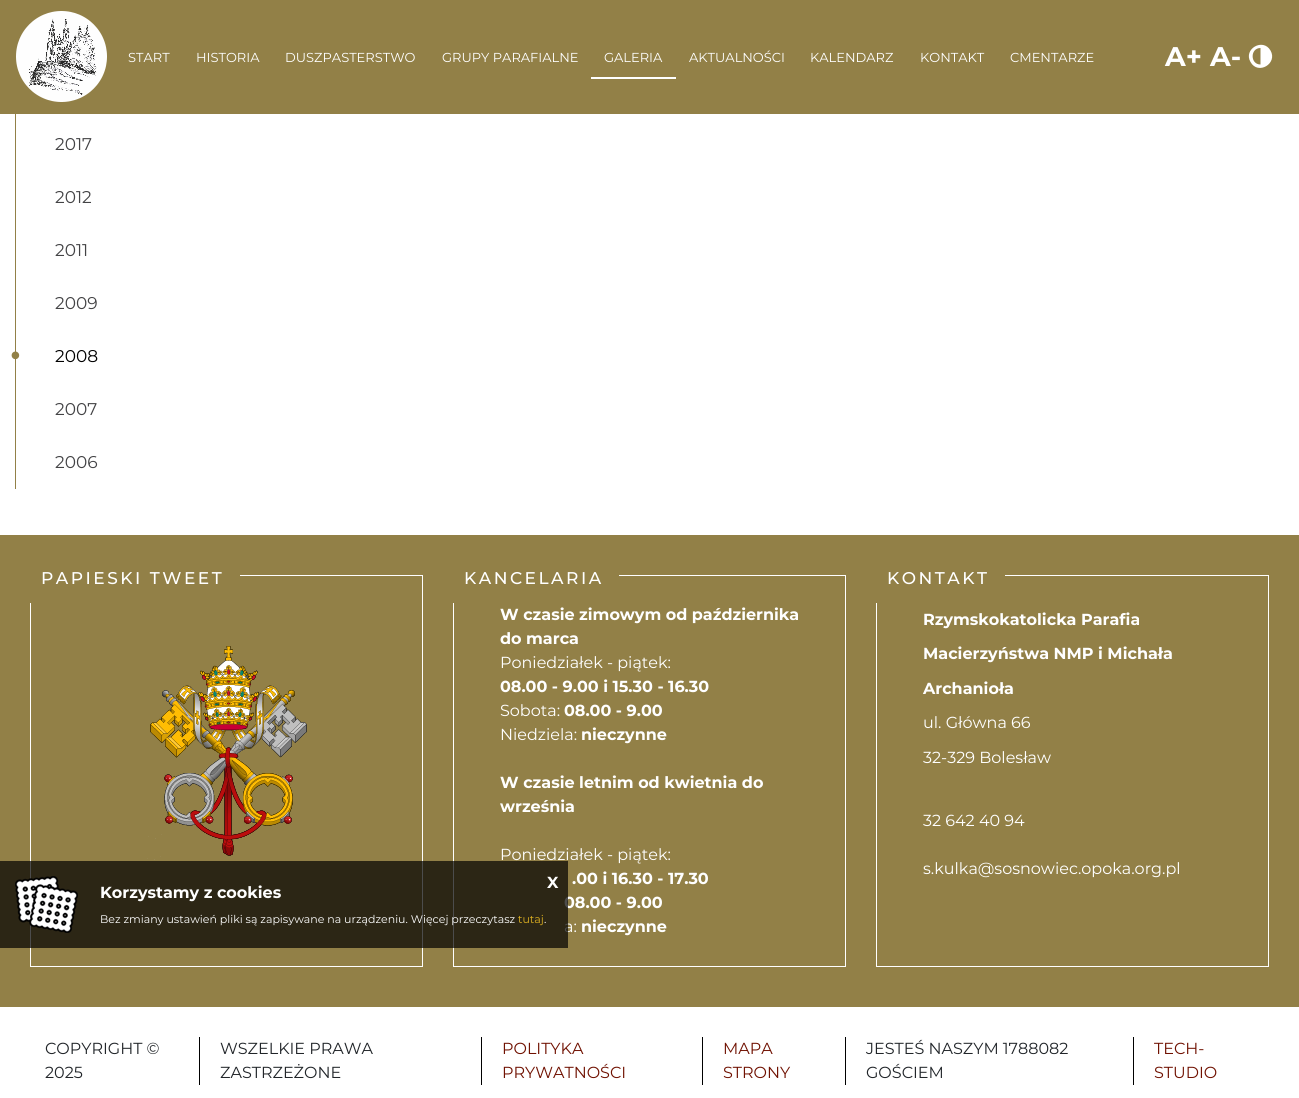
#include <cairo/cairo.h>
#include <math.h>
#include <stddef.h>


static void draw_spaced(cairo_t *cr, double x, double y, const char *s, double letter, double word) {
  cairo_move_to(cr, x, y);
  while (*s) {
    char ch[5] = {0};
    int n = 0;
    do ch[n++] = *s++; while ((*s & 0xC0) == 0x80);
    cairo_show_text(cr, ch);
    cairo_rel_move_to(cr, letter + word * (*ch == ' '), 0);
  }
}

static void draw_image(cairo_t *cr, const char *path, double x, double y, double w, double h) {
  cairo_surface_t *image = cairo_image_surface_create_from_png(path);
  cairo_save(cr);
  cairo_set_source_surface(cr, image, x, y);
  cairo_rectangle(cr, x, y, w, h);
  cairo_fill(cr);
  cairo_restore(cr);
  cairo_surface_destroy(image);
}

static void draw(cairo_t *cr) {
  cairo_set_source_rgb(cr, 1, 1, 1);
  cairo_paint(cr);
  cairo_set_source_rgb(cr, 146 / 255.0, 128 / 255.0, 71 / 255.0);
  cairo_rectangle(cr, 0, 0, 1299, 114);
  cairo_fill(cr);
  draw_image(cr, "images/1.png", 16, 11, 91, 91);
  cairo_set_source_rgb(cr, 1, 1, 1);
  cairo_rectangle(cr, 591, 77, 85, 2);
  cairo_fill(cr);
  cairo_new_path(cr);
  cairo_move_to(cr, 1260.5, 64.5);
  cairo_line_to(cr, 1260.5, 48);
  cairo_curve_to(cr, 1250, 48, 1250, 64.5, 1260.5, 64.5);
  cairo_close_path(cr);
  cairo_move_to(cr, 1270.5, 50.5);
  cairo_curve_to(cr, 1278, 63.5, 1258, 75.5, 1250.5, 62);
  cairo_curve_to(cr, 1243, 49, 1263, 37.5, 1270.5, 50.5);
  cairo_close_path(cr);
  cairo_fill(cr);
  cairo_set_source_rgb(cr, 146 / 255.0, 128 / 255.0, 71 / 255.0);
  cairo_rectangle(cr, 15, 114, 1, 375);
  cairo_fill(cr);
  cairo_rectangle(cr, 0, 535, 1299, 472);
  cairo_fill(cr);
  cairo_rectangle(cr, 30.5, 575.5, 392, 391);
  cairo_set_source_rgb(cr, 1, 1, 1);
  cairo_set_line_width(cr, 1);
  cairo_stroke(cr);
  cairo_set_source_rgb(cr, 146 / 255.0, 128 / 255.0, 71 / 255.0);
  cairo_rectangle(cr, 30, 575, 210, 28);
  cairo_fill(cr);
  draw_image(cr, "images/2.png", 147, 646, 160, 214);
  cairo_rectangle(cr, 453.5, 575.5, 392, 391);
  cairo_set_source_rgb(cr, 1, 1, 1);
  cairo_stroke(cr);
  cairo_set_source_rgb(cr, 146 / 255.0, 128 / 255.0, 71 / 255.0);
  cairo_rectangle(cr, 453, 575, 166, 28);
  cairo_fill(cr);
  cairo_rectangle(cr, 876.5, 575.5, 392, 391);
  cairo_set_source_rgb(cr, 1, 1, 1);
  cairo_stroke(cr);
  cairo_set_source_rgb(cr, 146 / 255.0, 128 / 255.0, 71 / 255.0);
  cairo_rectangle(cr, 876, 575, 129, 28);
  cairo_fill(cr);
  cairo_set_source_rgb(cr, 0, 0, 0);
  cairo_rectangle(cr, 199, 1037, 1, 48);
  cairo_fill(cr);
  cairo_rectangle(cr, 481, 1037, 1, 48);
  cairo_fill(cr);
  cairo_rectangle(cr, 702, 1037, 1, 48);
  cairo_fill(cr);
  cairo_rectangle(cr, 845, 1037, 1, 48);
  cairo_fill(cr);
  cairo_rectangle(cr, 1133, 1037, 1, 48);
  cairo_fill(cr);
  cairo_select_font_face(cr, "Montserrat", CAIRO_FONT_SLANT_NORMAL, CAIRO_FONT_WEIGHT_NORMAL);
  cairo_set_font_size(cr, 13);
  cairo_set_source_rgb(cr, 1, 1, 1);
  cairo_move_to(cr, 128, 62);
  cairo_show_text(cr, "START");
  cairo_move_to(cr, 196, 62);
  cairo_show_text(cr, "HISTORIA");
  cairo_move_to(cr, 285, 62);
  cairo_show_text(cr, "DUSZPASTERSTWO");
  cairo_move_to(cr, 442, 62);
  cairo_show_text(cr, "GRUPY PARAFIALNE");
  cairo_move_to(cr, 604, 62);
  cairo_show_text(cr, "GALERIA");
  cairo_move_to(cr, 689, 62);
  cairo_show_text(cr, "AKTUALNOŚCI");
  cairo_move_to(cr, 810, 62);
  cairo_show_text(cr, "KALENDARZ");
  cairo_move_to(cr, 920, 62);
  cairo_show_text(cr, "KONTAKT");
  cairo_move_to(cr, 1010, 62);
  cairo_show_text(cr, "CMENTARZE");
  cairo_select_font_face(cr, "Montserrat", CAIRO_FONT_SLANT_NORMAL, CAIRO_FONT_WEIGHT_BOLD);
  cairo_set_font_size(cr, 27);
  cairo_move_to(cr, 1165, 66);
  cairo_show_text(cr, "A+");
  cairo_move_to(cr, 1210, 66);
  cairo_show_text(cr, "A-");
  cairo_select_font_face(cr, "Montserrat", CAIRO_FONT_SLANT_NORMAL, CAIRO_FONT_WEIGHT_NORMAL);
  cairo_set_font_size(cr, 50);
  cairo_set_source_rgb(cr, 146 / 255.0, 128 / 255.0, 71 / 255.0);
  cairo_move_to(cr, 8, 369);
  cairo_show_text(cr, "•");
  cairo_set_font_size(cr, 17);
  cairo_set_source_rgb(cr, 67 / 255.0, 67 / 255.0, 69 / 255.0);
  cairo_move_to(cr, 55, 150);
  cairo_show_text(cr, "2017");
  cairo_move_to(cr, 55, 203);
  cairo_show_text(cr, "2012");
  cairo_move_to(cr, 55, 256);
  cairo_show_text(cr, "2011");
  cairo_move_to(cr, 55, 309);
  cairo_show_text(cr, "2009");
  cairo_set_source_rgb(cr, 0, 0, 0);
  cairo_move_to(cr, 55, 362);
  cairo_show_text(cr, "2008");
  cairo_set_source_rgb(cr, 67 / 255.0, 67 / 255.0, 69 / 255.0);
  cairo_move_to(cr, 55, 415);
  cairo_show_text(cr, "2007");
  cairo_move_to(cr, 55, 468);
  cairo_show_text(cr, "2006");
  cairo_select_font_face(cr, "Montserrat Medium", CAIRO_FONT_SLANT_NORMAL, CAIRO_FONT_WEIGHT_NORMAL);
  cairo_set_source_rgb(cr, 1, 1, 1);
  draw_spaced(cr, 41, 584, "PAPIESKI TWEET", 2.5, 0);
  draw_spaced(cr, 464, 584, "KANCELARIA", 2.5, 0);
  cairo_select_font_face(cr, "Montserrat", CAIRO_FONT_SLANT_NORMAL, CAIRO_FONT_WEIGHT_BOLD);
  cairo_set_font_size(cr, 16);
  cairo_move_to(cr, 500, 620);
  cairo_show_text(cr, "W czasie zimowym od października");
  cairo_move_to(cr, 500, 644);
  cairo_show_text(cr, "do marca");
  cairo_select_font_face(cr, "Montserrat", CAIRO_FONT_SLANT_NORMAL, CAIRO_FONT_WEIGHT_NORMAL);
  cairo_move_to(cr, 500, 668);
  cairo_show_text(cr, "Poniedziałek - piątek:");
  cairo_select_font_face(cr, "Montserrat", CAIRO_FONT_SLANT_NORMAL, CAIRO_FONT_WEIGHT_BOLD);
  cairo_move_to(cr, 500, 692);
  cairo_show_text(cr, "08.00 - 9.00 i 15.30 - 16.30");
  cairo_select_font_face(cr, "Montserrat", CAIRO_FONT_SLANT_NORMAL, CAIRO_FONT_WEIGHT_NORMAL);
  cairo_move_to(cr, 500, 716);
  cairo_show_text(cr, "Sobota:");
  cairo_select_font_face(cr, "Montserrat", CAIRO_FONT_SLANT_NORMAL, CAIRO_FONT_WEIGHT_BOLD);
  cairo_move_to(cr, 564, 716);
  cairo_show_text(cr, "08.00 - 9.00");
  cairo_select_font_face(cr, "Montserrat", CAIRO_FONT_SLANT_NORMAL, CAIRO_FONT_WEIGHT_NORMAL);
  cairo_move_to(cr, 500, 740);
  cairo_show_text(cr, "Niedziela:");
  cairo_select_font_face(cr, "Montserrat", CAIRO_FONT_SLANT_NORMAL, CAIRO_FONT_WEIGHT_BOLD);
  cairo_move_to(cr, 581, 740);
  cairo_show_text(cr, "nieczynne");
  cairo_move_to(cr, 500, 788);
  cairo_show_text(cr, "W czasie letnim od kwietnia do");
  cairo_move_to(cr, 500, 812);
  cairo_show_text(cr, "września");
  cairo_select_font_face(cr, "Montserrat", CAIRO_FONT_SLANT_NORMAL, CAIRO_FONT_WEIGHT_NORMAL);
  cairo_move_to(cr, 500, 860);
  cairo_show_text(cr, "Poniedziałek - piątek:");
  cairo_select_font_face(cr, "Montserrat", CAIRO_FONT_SLANT_NORMAL, CAIRO_FONT_WEIGHT_BOLD);
  cairo_move_to(cr, 572, 884);
  cairo_show_text(cr, ".00 i 16.30 - 17.30");
  cairo_move_to(cr, 564, 908);
  cairo_show_text(cr, "08.00 - 9.00");
  cairo_select_font_face(cr, "Montserrat", CAIRO_FONT_SLANT_NORMAL, CAIRO_FONT_WEIGHT_NORMAL);
  cairo_move_to(cr, 564, 932);
  cairo_show_text(cr, "a:");
  cairo_select_font_face(cr, "Montserrat", CAIRO_FONT_SLANT_NORMAL, CAIRO_FONT_WEIGHT_BOLD);
  cairo_move_to(cr, 581, 932);
  cairo_show_text(cr, "nieczynne");
  cairo_select_font_face(cr, "Montserrat Medium", CAIRO_FONT_SLANT_NORMAL, CAIRO_FONT_WEIGHT_NORMAL);
  cairo_set_font_size(cr, 17);
  draw_spaced(cr, 887, 584, "KONTAKT", 2.5, 0);
  cairo_select_font_face(cr, "Montserrat", CAIRO_FONT_SLANT_NORMAL, CAIRO_FONT_WEIGHT_BOLD);
  cairo_set_font_size(cr, 16);
  cairo_move_to(cr, 923, 625);
  cairo_show_text(cr, "Rzymskokatolicka Parafia");
  cairo_move_to(cr, 923, 659);
  cairo_show_text(cr, "Macierzyństwa NMP i Michała");
  cairo_move_to(cr, 923, 694);
  cairo_show_text(cr, "Archanioła");
  cairo_select_font_face(cr, "Montserrat", CAIRO_FONT_SLANT_NORMAL, CAIRO_FONT_WEIGHT_NORMAL);
  cairo_move_to(cr, 923, 728);
  cairo_show_text(cr, "ul. Główna 66");
  cairo_move_to(cr, 923, 763);
  cairo_show_text(cr, "32-329 Bolesław");
  cairo_move_to(cr, 923, 826);
  cairo_show_text(cr, "32 642 40 94");
  cairo_move_to(cr, 923, 874);
  cairo_show_text(cr, "s.kulka@sosnowiec.opoka.org.pl");
  cairo_set_source_rgb(cr, 33 / 255.0, 37 / 255.0, 41 / 255.0);
  cairo_move_to(cr, 45, 1054);
  cairo_show_text(cr, "COPYRIGHT ©");
  cairo_move_to(cr, 45, 1078);
  cairo_show_text(cr, "2025");
  cairo_move_to(cr, 220, 1054);
  cairo_show_text(cr, "WSZELKIE PRAWA");
  cairo_move_to(cr, 220, 1078);
  cairo_show_text(cr, "ZASTRZEŻONE");
  cairo_set_source_rgb(cr, 112 / 255.0, 17 / 255.0, 1 / 255.0);
  cairo_move_to(cr, 502, 1054);
  cairo_show_text(cr, "POLITYKA");
  cairo_move_to(cr, 502, 1078);
  cairo_show_text(cr, "PRYWATNOŚCI");
  cairo_move_to(cr, 723, 1054);
  cairo_show_text(cr, "MAPA");
  cairo_move_to(cr, 723, 1078);
  cairo_show_text(cr, "STRONY");
  cairo_set_source_rgb(cr, 33 / 255.0, 37 / 255.0, 41 / 255.0);
  cairo_move_to(cr, 866, 1054);
  cairo_show_text(cr, "JESTEŚ NASZYM 1788082");
  cairo_move_to(cr, 866, 1078);
  cairo_show_text(cr, "GOŚCIEM");
  cairo_set_source_rgb(cr, 112 / 255.0, 17 / 255.0, 1 / 255.0);
  cairo_move_to(cr, 1154, 1054);
  cairo_show_text(cr, "TECH-");
  cairo_move_to(cr, 1154, 1078);
  cairo_show_text(cr, "STUDIO");
  cairo_set_source_rgba(cr, 0, 0, 0, 0.7);
  cairo_rectangle(cr, 0, 861, 568, 87);
  cairo_fill(cr);
  draw_image(cr, "images/3.png", 15, 876, 63, 57);
  cairo_select_font_face(cr, "Montserrat", CAIRO_FONT_SLANT_NORMAL, CAIRO_FONT_WEIGHT_BOLD);
  cairo_set_source_rgb(cr, 1, 1, 1);
  cairo_move_to(cr, 547, 888);
  cairo_show_text(cr, "X");
  cairo_move_to(cr, 100, 898);
  cairo_show_text(cr, "Korzystamy z cookies");
  cairo_select_font_face(cr, "Montserrat", CAIRO_FONT_SLANT_NORMAL, CAIRO_FONT_WEIGHT_NORMAL);
  cairo_set_font_size(cr, 11);
  cairo_move_to(cr, 100, 923);
  cairo_show_text(cr, "Bez zmiany ustawień pliki są zapisywane na urządzeniu. Więcej przeczytasz");
  cairo_set_source_rgb(cr, 226 / 255.0, 180 / 255.0, 33 / 255.0);
  cairo_move_to(cr, 518, 923);
  cairo_show_text(cr, "tutaj");
  cairo_set_source_rgb(cr, 1, 1, 1);
  cairo_move_to(cr, 544, 923);
  cairo_show_text(cr, ".");
}

int main(void) {
  cairo_surface_t *surface = cairo_image_surface_create(CAIRO_FORMAT_RGB24, 1299, 1098);
  cairo_t *cr = cairo_create(surface);
  cairo_font_options_t *options = cairo_font_options_create();
  cairo_font_options_set_hint_metrics(options, CAIRO_HINT_METRICS_OFF);
  cairo_font_options_set_hint_style(options, CAIRO_HINT_STYLE_NONE);
  cairo_set_font_options(cr, options);
  cairo_set_miter_limit(cr, 4);
  draw(cr);
  cairo_surface_write_to_png(surface, "out.png");
  cairo_font_options_destroy(options);
  cairo_destroy(cr);
  cairo_surface_destroy(surface);
  return 0;
}
